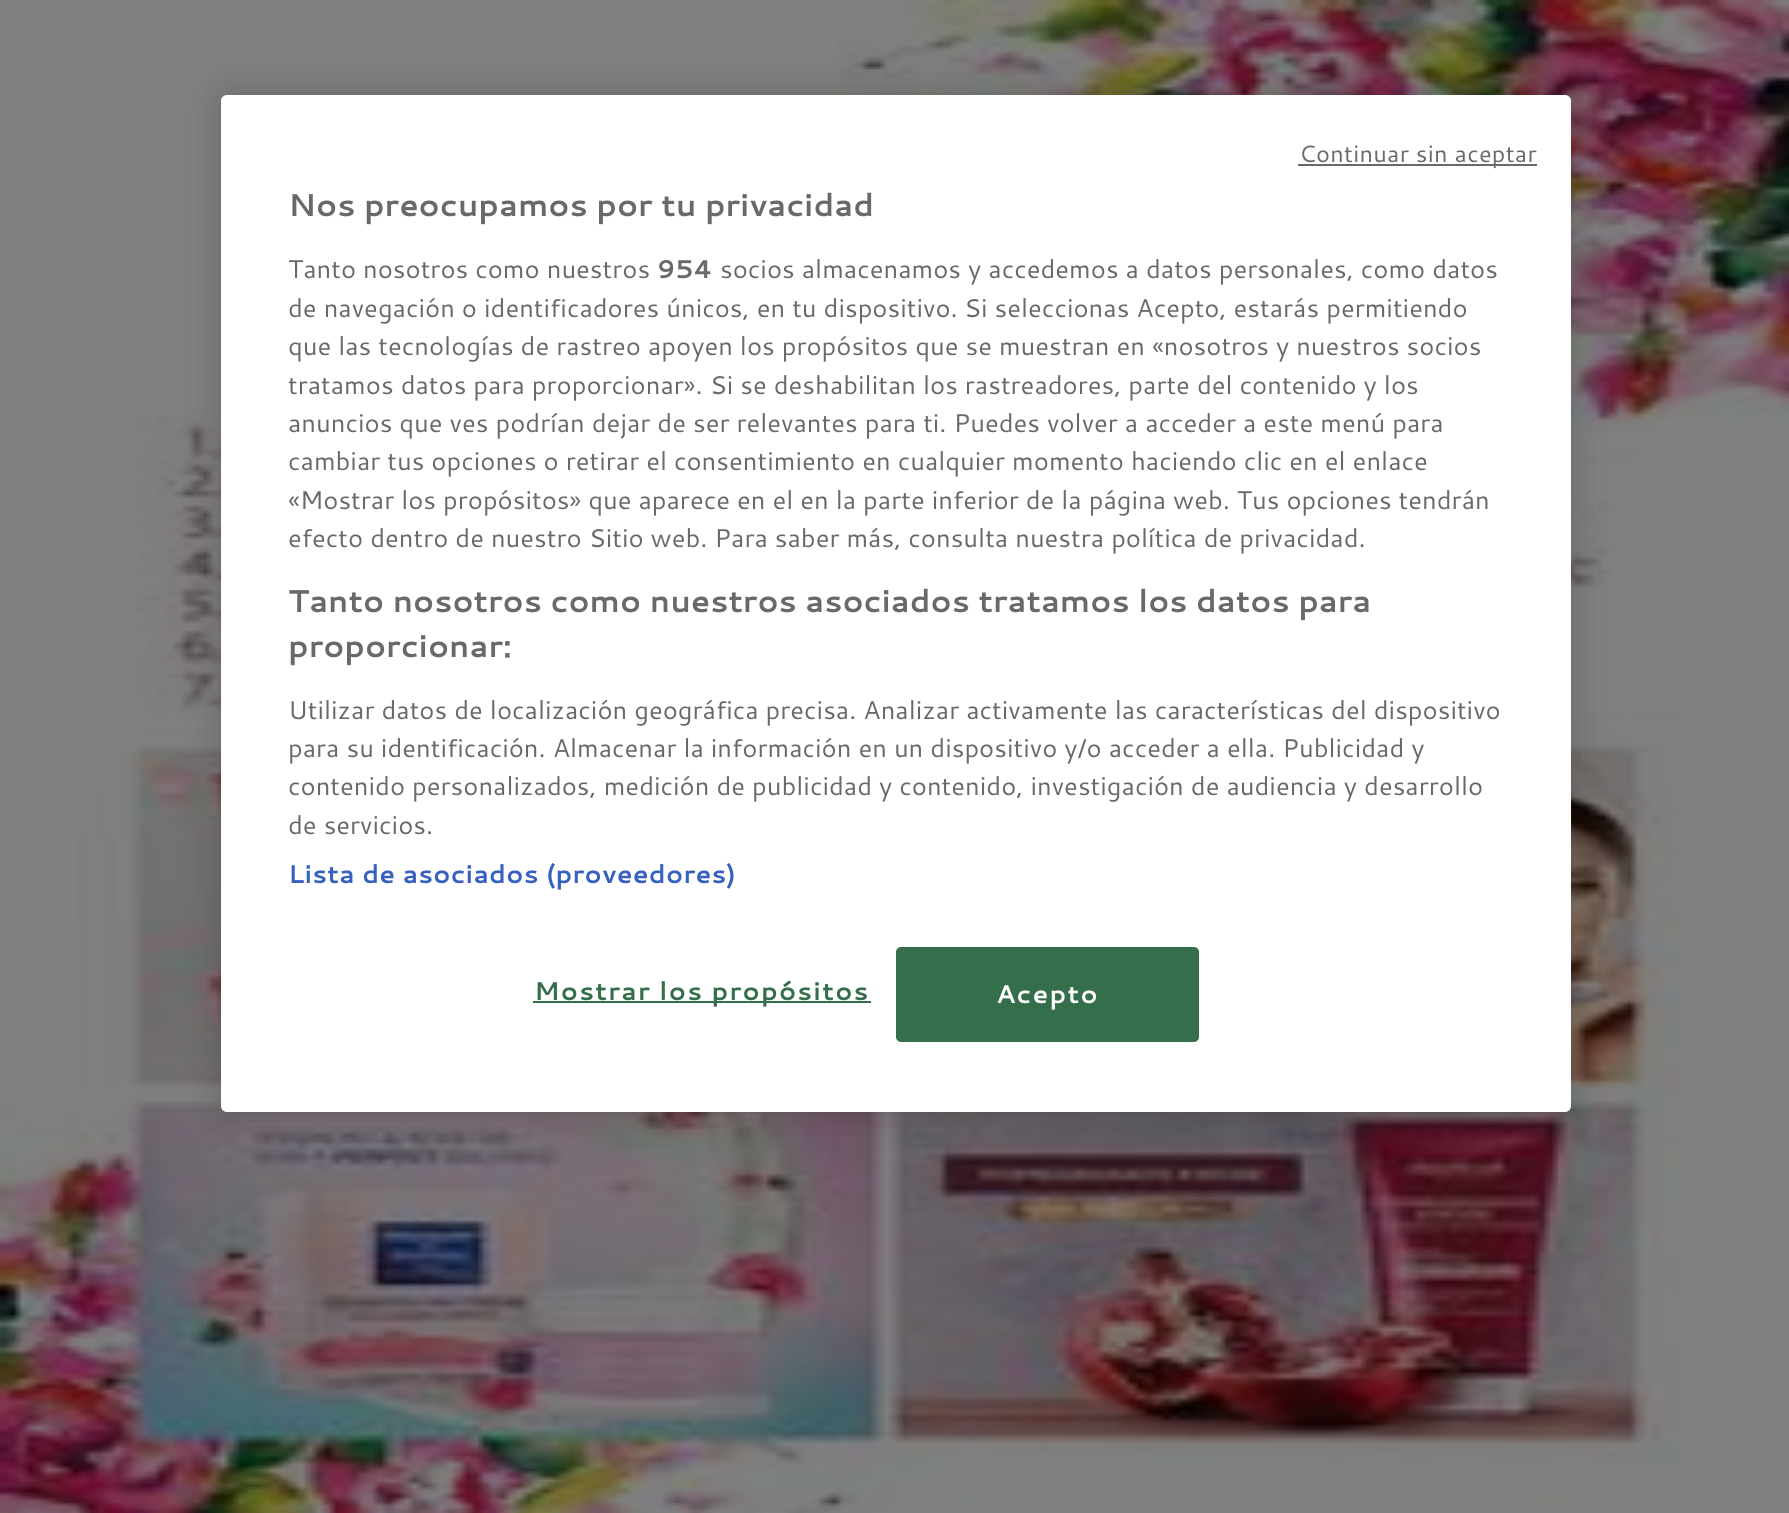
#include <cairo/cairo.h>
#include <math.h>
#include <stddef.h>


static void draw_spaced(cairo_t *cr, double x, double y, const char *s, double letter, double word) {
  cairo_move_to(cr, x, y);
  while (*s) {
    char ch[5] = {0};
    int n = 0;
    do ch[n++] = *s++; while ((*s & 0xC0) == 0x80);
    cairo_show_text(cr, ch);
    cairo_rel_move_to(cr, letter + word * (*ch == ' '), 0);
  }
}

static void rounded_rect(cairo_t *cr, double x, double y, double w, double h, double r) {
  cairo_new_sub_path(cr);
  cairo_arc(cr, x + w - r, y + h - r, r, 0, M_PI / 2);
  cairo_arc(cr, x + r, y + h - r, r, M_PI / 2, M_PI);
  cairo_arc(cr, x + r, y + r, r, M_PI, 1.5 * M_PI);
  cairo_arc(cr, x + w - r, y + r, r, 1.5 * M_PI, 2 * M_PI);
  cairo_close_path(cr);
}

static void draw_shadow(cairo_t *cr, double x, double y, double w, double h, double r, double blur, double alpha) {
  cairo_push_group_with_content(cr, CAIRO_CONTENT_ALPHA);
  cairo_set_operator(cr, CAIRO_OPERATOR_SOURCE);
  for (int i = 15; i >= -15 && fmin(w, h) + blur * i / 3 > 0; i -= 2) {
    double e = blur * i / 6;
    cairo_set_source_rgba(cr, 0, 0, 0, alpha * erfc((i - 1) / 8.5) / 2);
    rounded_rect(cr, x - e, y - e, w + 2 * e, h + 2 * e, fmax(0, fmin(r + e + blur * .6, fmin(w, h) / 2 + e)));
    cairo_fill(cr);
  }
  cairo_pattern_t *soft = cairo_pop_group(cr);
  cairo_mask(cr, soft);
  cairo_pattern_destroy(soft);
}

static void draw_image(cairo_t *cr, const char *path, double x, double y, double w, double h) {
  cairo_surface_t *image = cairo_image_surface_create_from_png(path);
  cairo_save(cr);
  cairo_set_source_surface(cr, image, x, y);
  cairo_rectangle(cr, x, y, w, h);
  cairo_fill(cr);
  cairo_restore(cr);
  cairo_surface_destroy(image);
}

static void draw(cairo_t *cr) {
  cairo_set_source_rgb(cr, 1, 1, 1);
  cairo_paint(cr);
  draw_image(cr, "images/1.png", 0, 0, 1789, 1513);
  cairo_set_source_rgb(cr, 0, 0, 0);
  draw_shadow(cr, 221, 95, 1350, 1017, 6, 20, 0.2);
  cairo_set_source_rgb(cr, 1, 1, 1);
  rounded_rect(cr, 221, 95, 1350, 1017, 6);
  cairo_fill(cr);
  cairo_set_source_rgb(cr, 105 / 255.0, 105 / 255.0, 105 / 255.0);
  cairo_rectangle(cr, 1298, 164, 239, 2);
  cairo_fill(cr);
  cairo_set_source_rgb(cr, 52 / 255.0, 110 / 255.0, 74 / 255.0);
  cairo_rectangle(cr, 533, 1001, 338, 2);
  cairo_fill(cr);
  rounded_rect(cr, 897, 948, 301, 93, 4);
  cairo_fill_preserve(cr);
  cairo_stroke(cr);
  cairo_select_font_face(cr, "Cantarell", CAIRO_FONT_SLANT_NORMAL, CAIRO_FONT_WEIGHT_NORMAL);
  cairo_set_font_size(cr, 23.6);
  cairo_set_source_rgb(cr, 105 / 255.0, 105 / 255.0, 105 / 255.0);
  draw_spaced(cr, 1299, 162, "Continuar sin aceptar", 0.25, 0);
  cairo_select_font_face(cr, "Cantarell", CAIRO_FONT_SLANT_NORMAL, CAIRO_FONT_WEIGHT_BOLD);
  cairo_set_font_size(cr, 31.5);
  cairo_move_to(cr, 288, 216);
  cairo_show_text(cr, "Nos preocupamos por tu privacidad");
  cairo_select_font_face(cr, "Cantarell", CAIRO_FONT_SLANT_NORMAL, CAIRO_FONT_WEIGHT_NORMAL);
  cairo_set_font_size(cr, 25.6);
  cairo_move_to(cr, 288, 278);
  cairo_show_text(cr, "Tanto nosotros como nuestros");
  cairo_select_font_face(cr, "Cantarell", CAIRO_FONT_SLANT_NORMAL, CAIRO_FONT_WEIGHT_BOLD);
  cairo_move_to(cr, 657, 278);
  cairo_show_text(cr, "954");
  cairo_select_font_face(cr, "Cantarell", CAIRO_FONT_SLANT_NORMAL, CAIRO_FONT_WEIGHT_NORMAL);
  cairo_move_to(cr, 720, 278);
  cairo_show_text(cr, "socios almacenamos y accedemos a datos personales, como datos");
  cairo_move_to(cr, 288, 317);
  cairo_show_text(cr, "de navegación o identificadores únicos, en tu dispositivo.");
  cairo_move_to(cr, 964, 317);
  cairo_show_text(cr, "Si seleccionas Acepto, estarás permitiendo");
  cairo_move_to(cr, 288, 355);
  cairo_show_text(cr, "que las tecnologías de rastreo apoyen los propósitos que se muestran en «nosotros y nuestros socios");
  cairo_move_to(cr, 288, 394);
  cairo_show_text(cr, "tratamos datos para proporcionar». Si se deshabilitan los rastreadores, parte del contenido y los");
  cairo_move_to(cr, 288, 432);
  cairo_show_text(cr, "anuncios que ves podrían dejar de ser relevantes para ti. Puedes volver a acceder a este menú para");
  cairo_move_to(cr, 288, 470);
  cairo_show_text(cr, "cambiar tus opciones o retirar el consentimiento en cualquier momento haciendo clic en el enlace");
  cairo_move_to(cr, 288, 509);
  cairo_show_text(cr, "«Mostrar los propósitos» que aparece en el en la parte inferior de la página web. Tus opciones tendrán");
  cairo_move_to(cr, 288, 547);
  cairo_show_text(cr, "efecto dentro de nuestro Sitio web. Para saber más, consulta nuestra política de privacidad.");
  cairo_select_font_face(cr, "Cantarell", CAIRO_FONT_SLANT_NORMAL, CAIRO_FONT_WEIGHT_BOLD);
  cairo_set_font_size(cr, 31.5);
  cairo_move_to(cr, 288, 612);
  cairo_show_text(cr, "Tanto nosotros como nuestros asociados tratamos los datos para");
  cairo_move_to(cr, 288, 657);
  cairo_show_text(cr, "proporcionar:");
  cairo_select_font_face(cr, "Cantarell", CAIRO_FONT_SLANT_NORMAL, CAIRO_FONT_WEIGHT_NORMAL);
  cairo_set_font_size(cr, 25.6);
  cairo_move_to(cr, 288, 719);
  cairo_show_text(cr, "Utilizar datos de localización geográfica precisa. Analizar activamente las características del dispositivo");
  cairo_move_to(cr, 288, 757);
  cairo_show_text(cr, "para su identificación. Almacenar la información en un dispositivo y/o acceder a ella. Publicidad y");
  cairo_move_to(cr, 288, 795);
  cairo_show_text(cr, "contenido personalizados, medición de publicidad y contenido, investigación de audiencia y desarrollo");
  cairo_move_to(cr, 288, 834);
  cairo_show_text(cr, "de servicios.");
  cairo_select_font_face(cr, "Cantarell", CAIRO_FONT_SLANT_NORMAL, CAIRO_FONT_WEIGHT_BOLD);
  cairo_set_source_rgb(cr, 56 / 255.0, 96 / 255.0, 190 / 255.0);
  draw_spaced(cr, 288, 883, "Lista de asociados (proveedores)", 0.25, 0);
  cairo_set_source_rgb(cr, 52 / 255.0, 110 / 255.0, 74 / 255.0);
  draw_spaced(cr, 534, 1000, "Mostrar los propósitos", 1.25, 0);
  cairo_set_source_rgb(cr, 1, 1, 1);
  draw_spaced(cr, 996, 1003, "Acepto", 1.25, 0);
}

int main(void) {
  cairo_surface_t *surface = cairo_image_surface_create(CAIRO_FORMAT_RGB24, 1789, 1513);
  cairo_t *cr = cairo_create(surface);
  cairo_font_options_t *options = cairo_font_options_create();
  cairo_font_options_set_hint_metrics(options, CAIRO_HINT_METRICS_OFF);
  cairo_font_options_set_hint_style(options, CAIRO_HINT_STYLE_NONE);
  cairo_set_font_options(cr, options);
  cairo_set_miter_limit(cr, 4);
  draw(cr);
  cairo_surface_write_to_png(surface, "out.png");
  cairo_font_options_destroy(options);
  cairo_destroy(cr);
  cairo_surface_destroy(surface);
  return 0;
}
